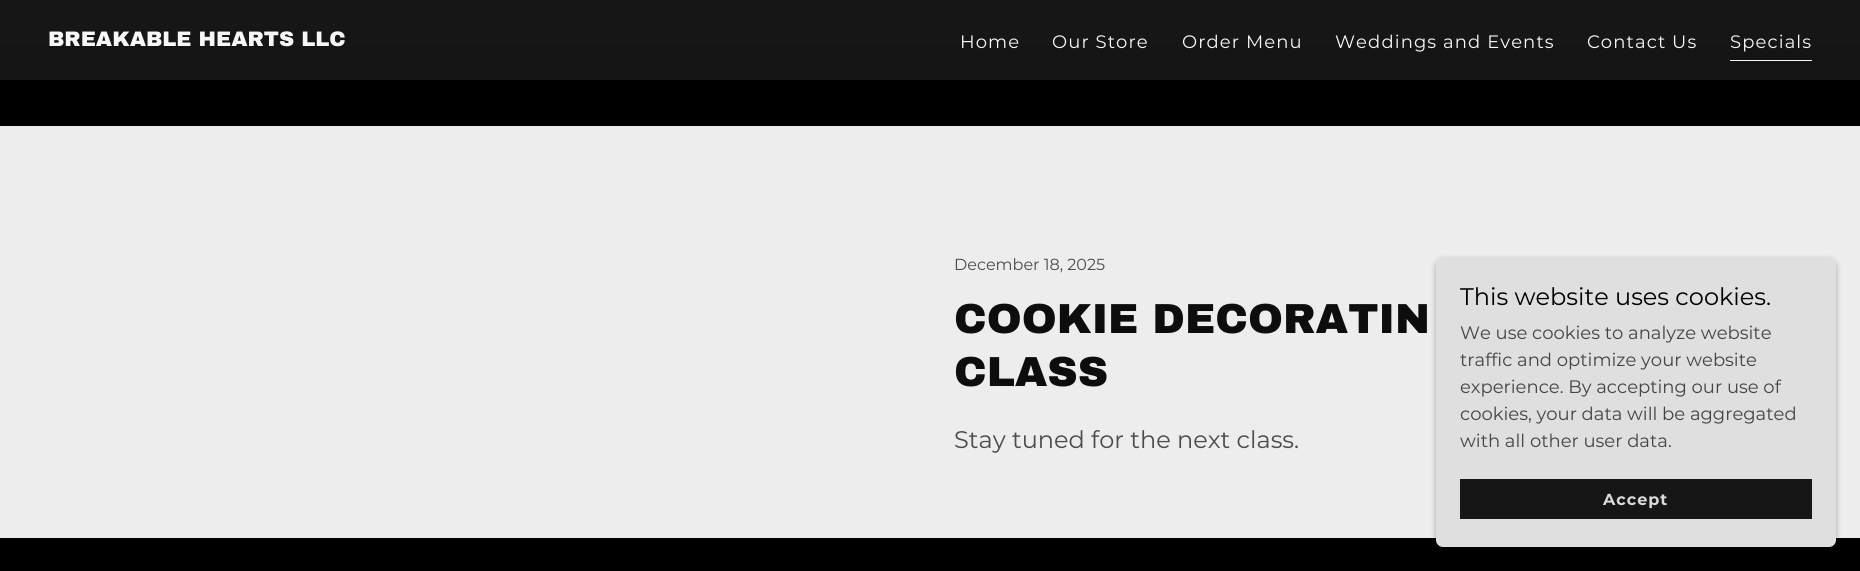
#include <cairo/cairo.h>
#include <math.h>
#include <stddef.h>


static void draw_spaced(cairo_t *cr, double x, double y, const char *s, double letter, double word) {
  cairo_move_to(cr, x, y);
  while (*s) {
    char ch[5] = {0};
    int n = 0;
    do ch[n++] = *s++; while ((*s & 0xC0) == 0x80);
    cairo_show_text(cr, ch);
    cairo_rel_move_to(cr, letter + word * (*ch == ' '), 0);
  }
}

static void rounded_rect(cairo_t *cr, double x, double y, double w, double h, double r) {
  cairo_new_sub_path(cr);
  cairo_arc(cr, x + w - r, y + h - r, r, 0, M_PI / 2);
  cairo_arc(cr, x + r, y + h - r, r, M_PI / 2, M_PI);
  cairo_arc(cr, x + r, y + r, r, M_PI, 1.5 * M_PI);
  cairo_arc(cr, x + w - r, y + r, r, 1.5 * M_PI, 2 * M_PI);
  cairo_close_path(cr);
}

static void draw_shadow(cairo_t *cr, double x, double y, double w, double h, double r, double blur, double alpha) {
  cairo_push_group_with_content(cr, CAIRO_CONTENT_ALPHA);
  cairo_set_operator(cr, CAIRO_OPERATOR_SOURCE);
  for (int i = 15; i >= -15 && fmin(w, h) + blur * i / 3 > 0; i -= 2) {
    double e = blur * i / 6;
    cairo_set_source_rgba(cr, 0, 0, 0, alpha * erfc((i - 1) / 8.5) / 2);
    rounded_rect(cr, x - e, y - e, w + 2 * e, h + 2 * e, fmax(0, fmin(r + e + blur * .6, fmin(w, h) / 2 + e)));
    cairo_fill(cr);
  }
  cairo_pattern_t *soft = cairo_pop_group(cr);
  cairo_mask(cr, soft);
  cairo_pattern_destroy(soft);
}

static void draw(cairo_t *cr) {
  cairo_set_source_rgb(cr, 0, 0, 0);
  cairo_paint(cr);
  cairo_set_source_rgb(cr, 20 / 255.0, 20 / 255.0, 20 / 255.0);
  cairo_rectangle(cr, 0, 46, 1860, 34);
  cairo_fill(cr);
  cairo_set_source_rgb(cr, 22 / 255.0, 22 / 255.0, 22 / 255.0);
  cairo_rectangle(cr, 0, 0, 1860, 46);
  cairo_fill(cr);
  cairo_set_source_rgb(cr, 247 / 255.0, 247 / 255.0, 247 / 255.0);
  cairo_rectangle(cr, 1730, 60, 82, 1);
  cairo_fill(cr);
  cairo_set_source_rgb(cr, 237 / 255.0, 237 / 255.0, 237 / 255.0);
  cairo_rectangle(cr, 0, 126, 1860, 412);
  cairo_fill(cr);
  cairo_set_source_rgb(cr, 0, 0, 0);
  draw_shadow(cr, 1436, 260, 400, 289, 7, 3, 0.3);
  cairo_set_source_rgb(cr, 223 / 255.0, 223 / 255.0, 223 / 255.0);
  rounded_rect(cr, 1436, 258, 400, 289, 7);
  cairo_fill(cr);
  cairo_set_source_rgb(cr, 22 / 255.0, 22 / 255.0, 22 / 255.0);
  cairo_rectangle(cr, 1460, 479, 352, 40);
  cairo_fill(cr);
  cairo_select_font_face(cr, "Archivo Black Black", CAIRO_FONT_SLANT_NORMAL, CAIRO_FONT_WEIGHT_NORMAL);
  cairo_set_font_size(cr, 21);
  cairo_set_source_rgb(cr, 247 / 255.0, 247 / 255.0, 247 / 255.0);
  cairo_move_to(cr, 48, 46);
  cairo_show_text(cr, "BREAKABLE HEARTS LLC");
  cairo_select_font_face(cr, "Montserrat", CAIRO_FONT_SLANT_NORMAL, CAIRO_FONT_WEIGHT_NORMAL);
  cairo_set_font_size(cr, 18);
  draw_spaced(cr, 960, 48, "Home", 1.1, 0);
  draw_spaced(cr, 1052, 48, "Our Store", 1.1, 0);
  draw_spaced(cr, 1182, 48, "Order Menu", 1.1, 0);
  draw_spaced(cr, 1335, 48, "Weddings and Events", 1.1, 0);
  draw_spaced(cr, 1587, 48, "Contact Us", 1.1, 0);
  draw_spaced(cr, 1730, 48, "Specials", 1.1, 0);
  cairo_set_font_size(cr, 16);
  cairo_set_source_rgb(cr, 75 / 255.0, 75 / 255.0, 75 / 255.0);
  cairo_move_to(cr, 954, 270);
  cairo_show_text(cr, "December 18, 2025");
  cairo_select_font_face(cr, "Archivo Black Black", CAIRO_FONT_SLANT_NORMAL, CAIRO_FONT_WEIGHT_NORMAL);
  cairo_set_font_size(cr, 42);
  cairo_set_source_rgb(cr, 13 / 255.0, 13 / 255.0, 13 / 255.0);
  cairo_move_to(cr, 954, 333);
  cairo_show_text(cr, "COOKIE DECORATIN");
  cairo_move_to(cr, 954, 386);
  cairo_show_text(cr, "CLASS");
  cairo_select_font_face(cr, "Montserrat", CAIRO_FONT_SLANT_NORMAL, CAIRO_FONT_WEIGHT_NORMAL);
  cairo_set_font_size(cr, 24);
  cairo_set_source_rgb(cr, 75 / 255.0, 75 / 255.0, 75 / 255.0);
  cairo_move_to(cr, 954, 448);
  cairo_show_text(cr, "Stay tuned for the next class.");
  cairo_set_source_rgb(cr, 0, 0, 0);
  cairo_move_to(cr, 1460, 305);
  cairo_show_text(cr, "This website uses cookies.");
  cairo_set_font_size(cr, 18);
  cairo_set_source_rgb(cr, 68 / 255.0, 68 / 255.0, 68 / 255.0);
  cairo_move_to(cr, 1460, 339);
  cairo_show_text(cr, "We use cookies to analyze website");
  cairo_move_to(cr, 1460, 366);
  cairo_show_text(cr, "traffic and optimize your website");
  cairo_move_to(cr, 1460, 393);
  cairo_show_text(cr, "experience. By accepting our use of");
  cairo_move_to(cr, 1460, 420);
  cairo_show_text(cr, "cookies, your data will be aggregated");
  cairo_move_to(cr, 1460, 447);
  cairo_show_text(cr, "with all other user data.");
  cairo_select_font_face(cr, "Montserrat", CAIRO_FONT_SLANT_NORMAL, CAIRO_FONT_WEIGHT_BOLD);
  cairo_set_font_size(cr, 16);
  cairo_set_source_rgb(cr, 219 / 255.0, 219 / 255.0, 219 / 255.0);
  draw_spaced(cr, 1603, 505, "Accept", 1, 0);
}

int main(void) {
  cairo_surface_t *surface = cairo_image_surface_create(CAIRO_FORMAT_RGB24, 1860, 571);
  cairo_t *cr = cairo_create(surface);
  cairo_font_options_t *options = cairo_font_options_create();
  cairo_font_options_set_hint_metrics(options, CAIRO_HINT_METRICS_OFF);
  cairo_font_options_set_hint_style(options, CAIRO_HINT_STYLE_NONE);
  cairo_set_font_options(cr, options);
  cairo_set_miter_limit(cr, 4);
  draw(cr);
  cairo_surface_write_to_png(surface, "out.png");
  cairo_font_options_destroy(options);
  cairo_destroy(cr);
  cairo_surface_destroy(surface);
  return 0;
}
